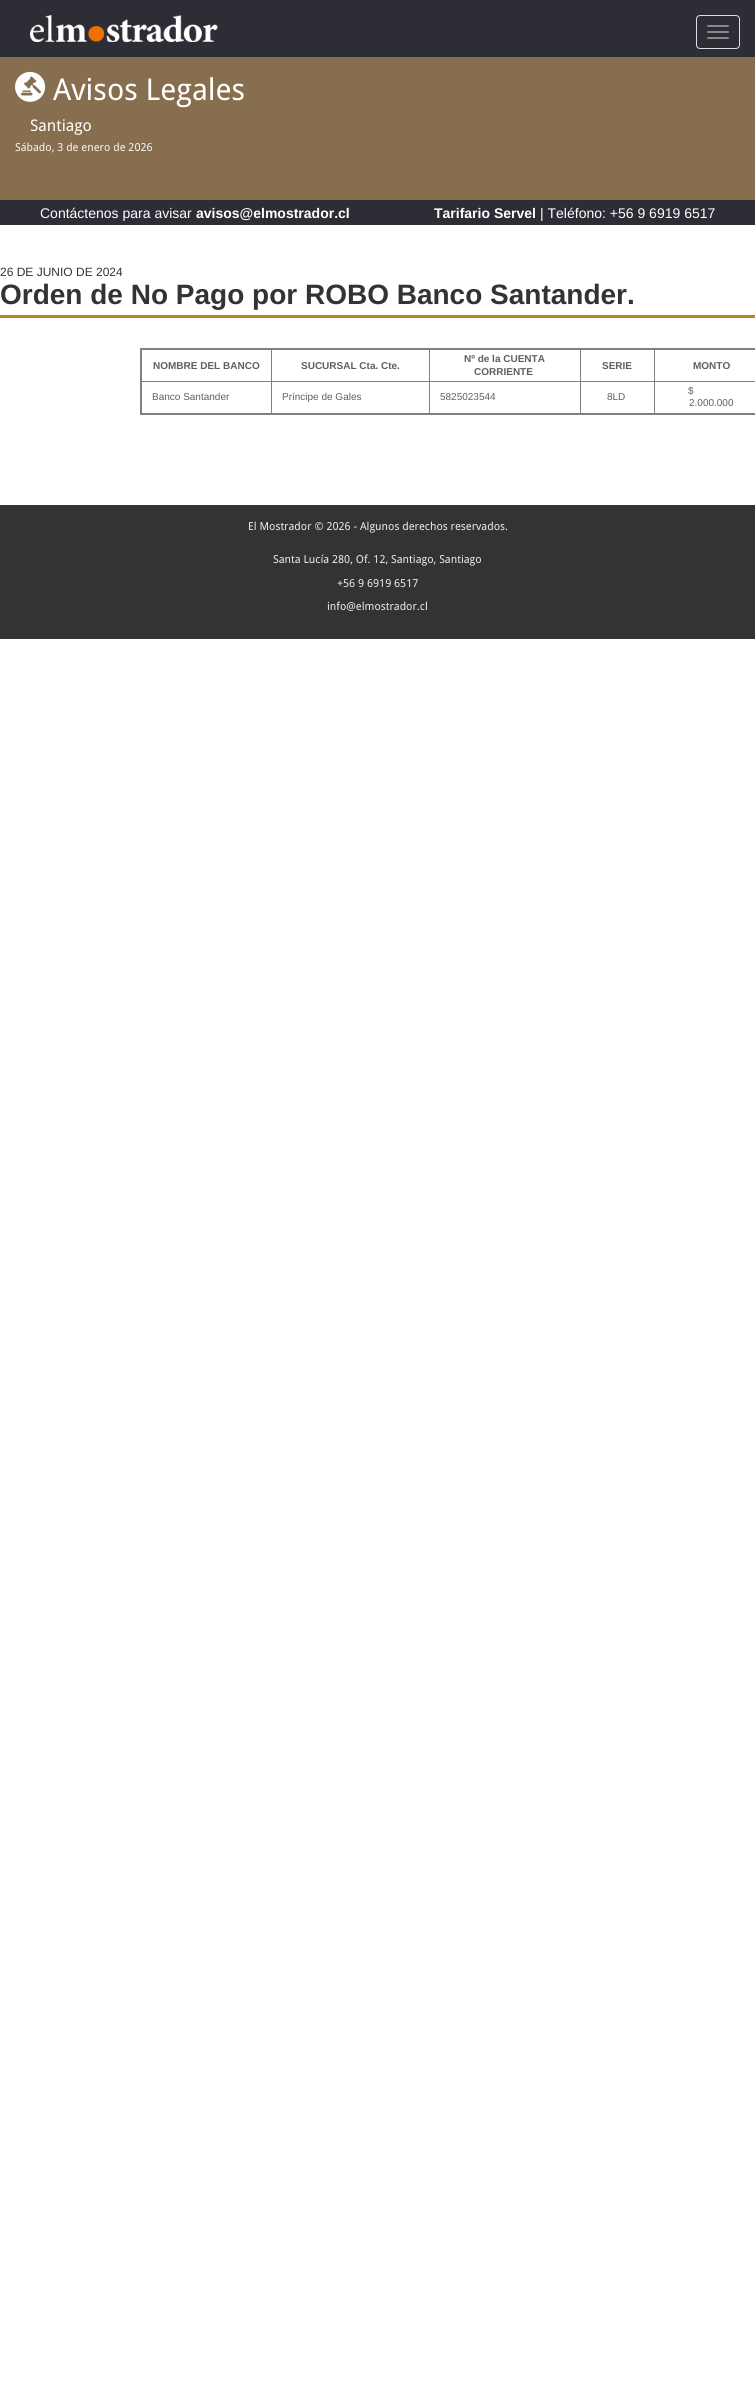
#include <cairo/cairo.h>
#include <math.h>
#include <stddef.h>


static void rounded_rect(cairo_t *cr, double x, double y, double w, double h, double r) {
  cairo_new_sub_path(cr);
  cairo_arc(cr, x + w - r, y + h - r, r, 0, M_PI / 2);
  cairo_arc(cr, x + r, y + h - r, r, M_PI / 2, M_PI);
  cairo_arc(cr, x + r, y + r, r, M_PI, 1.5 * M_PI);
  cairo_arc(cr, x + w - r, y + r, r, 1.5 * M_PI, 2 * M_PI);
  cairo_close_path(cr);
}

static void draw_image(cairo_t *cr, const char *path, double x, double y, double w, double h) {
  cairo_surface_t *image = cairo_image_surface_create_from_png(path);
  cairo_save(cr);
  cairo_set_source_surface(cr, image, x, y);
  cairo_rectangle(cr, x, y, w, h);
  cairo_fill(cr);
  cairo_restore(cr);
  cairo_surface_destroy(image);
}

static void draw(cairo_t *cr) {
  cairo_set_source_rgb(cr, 1, 1, 1);
  cairo_paint(cr);
  cairo_set_source_rgb(cr, 45 / 255.0, 45 / 255.0, 54 / 255.0);
  cairo_rectangle(cr, 0, 0, 755, 57);
  cairo_fill(cr);
  draw_image(cr, "images/1.png", 30, 15, 188, 27);
  rounded_rect(cr, 696.5, 15.5, 43, 33, 3.5);
  cairo_set_source_rgb(cr, 221 / 255.0, 221 / 255.0, 221 / 255.0);
  cairo_set_line_width(cr, 1);
  cairo_stroke(cr);
  cairo_set_source_rgb(cr, 136 / 255.0, 136 / 255.0, 136 / 255.0);
  rounded_rect(cr, 707, 25, 22, 2, 1);
  cairo_fill(cr);
  rounded_rect(cr, 707, 31, 22, 2, 1);
  cairo_fill(cr);
  rounded_rect(cr, 707, 37, 22, 2, 1);
  cairo_fill(cr);
  cairo_set_source_rgb(cr, 135 / 255.0, 110 / 255.0, 79 / 255.0);
  cairo_rectangle(cr, 0, 57, 755, 143);
  cairo_fill(cr);
  draw_image(cr, "images/2.png", 15, 71, 31, 31);
  cairo_set_source_rgb(cr, 45 / 255.0, 45 / 255.0, 54 / 255.0);
  cairo_rectangle(cr, 0, 200, 755, 25);
  cairo_fill(cr);
  cairo_set_source_rgb(cr, 187 / 255.0, 130 / 255.0, 32 / 255.0);
  cairo_rectangle(cr, 0, 315, 755, 3);
  cairo_fill(cr);
  cairo_set_source_rgb(cr, 128 / 255.0, 128 / 255.0, 128 / 255.0);
  cairo_rectangle(cr, 654, 381, 101, 1);
  cairo_fill(cr);
  cairo_rectangle(cr, 654, 381, 1, 33);
  cairo_fill(cr);
  cairo_rectangle(cr, 580, 381, 75, 1);
  cairo_fill(cr);
  cairo_rectangle(cr, 580, 381, 1, 33);
  cairo_fill(cr);
  cairo_rectangle(cr, 429, 381, 152, 1);
  cairo_fill(cr);
  cairo_rectangle(cr, 429, 381, 1, 33);
  cairo_fill(cr);
  cairo_rectangle(cr, 271, 381, 159, 1);
  cairo_fill(cr);
  cairo_rectangle(cr, 271, 381, 1, 33);
  cairo_fill(cr);
  cairo_rectangle(cr, 141, 381, 131, 1);
  cairo_fill(cr);
  cairo_rectangle(cr, 271, 349, 1, 33);
  cairo_fill(cr);
  cairo_rectangle(cr, 429, 349, 1, 33);
  cairo_fill(cr);
  cairo_rectangle(cr, 580, 349, 1, 33);
  cairo_fill(cr);
  cairo_rectangle(cr, 654, 349, 1, 33);
  cairo_fill(cr);
  cairo_rectangle(cr, 140, 348, 615, 2);
  cairo_fill(cr);
  cairo_rectangle(cr, 140, 413, 615, 2);
  cairo_fill(cr);
  cairo_rectangle(cr, 140, 348, 2, 67);
  cairo_fill(cr);
  cairo_set_source_rgb(cr, 51 / 255.0, 51 / 255.0, 51 / 255.0);
  cairo_rectangle(cr, 0, 505, 755, 134);
  cairo_fill(cr);
  cairo_select_font_face(cr, "Droid Sans", CAIRO_FONT_SLANT_NORMAL, CAIRO_FONT_WEIGHT_NORMAL);
  cairo_set_font_size(cr, 30);
  cairo_set_source_rgb(cr, 1, 1, 1);
  cairo_move_to(cr, 53, 100);
  cairo_show_text(cr, "Avisos Legales");
  cairo_set_font_size(cr, 16);
  cairo_move_to(cr, 30, 131);
  cairo_show_text(cr, "Santiago");
  cairo_set_font_size(cr, 11);
  cairo_set_source_rgb(cr, 246 / 255.0, 246 / 255.0, 246 / 255.0);
  cairo_move_to(cr, 15, 151);
  cairo_show_text(cr, "Sábado, 3 de enero de 2026");
  cairo_select_font_face(cr, "Liberation Sans", CAIRO_FONT_SLANT_NORMAL, CAIRO_FONT_WEIGHT_NORMAL);
  cairo_set_font_size(cr, 14);
  cairo_set_source_rgb(cr, 1, 1, 1);
  cairo_move_to(cr, 40, 218);
  cairo_show_text(cr, "Contáctenos para avisar");
  cairo_select_font_face(cr, "Liberation Sans", CAIRO_FONT_SLANT_NORMAL, CAIRO_FONT_WEIGHT_BOLD);
  cairo_move_to(cr, 196, 218);
  cairo_show_text(cr, "avisos@elmostrador.cl");
  cairo_move_to(cr, 434, 218);
  cairo_show_text(cr, "Tarifario Servel");
  cairo_select_font_face(cr, "Liberation Sans", CAIRO_FONT_SLANT_NORMAL, CAIRO_FONT_WEIGHT_NORMAL);
  cairo_move_to(cr, 540, 218);
  cairo_show_text(cr, "| Teléfono: +56 9 6919 6517");
  cairo_set_font_size(cr, 12);
  cairo_set_source_rgb(cr, 51 / 255.0, 51 / 255.0, 51 / 255.0);
  cairo_move_to(cr, 0, 276);
  cairo_show_text(cr, "26 DE JUNIO DE 2024");
  cairo_select_font_face(cr, "Liberation Sans", CAIRO_FONT_SLANT_NORMAL, CAIRO_FONT_WEIGHT_BOLD);
  cairo_set_font_size(cr, 28);
  cairo_move_to(cr, 0, 304);
  cairo_show_text(cr, "Orden de No Pago por ROBO Banco Santander.");
  cairo_set_font_size(cr, 10);
  cairo_set_source_rgb(cr, 95 / 255.0, 95 / 255.0, 95 / 255.0);
  cairo_move_to(cr, 153, 369);
  cairo_show_text(cr, "NOMBRE DEL BANCO");
  cairo_move_to(cr, 301, 369);
  cairo_show_text(cr, "SUCURSAL Cta. Cte.");
  cairo_move_to(cr, 464, 362);
  cairo_show_text(cr, "Nº de la CUENTA");
  cairo_move_to(cr, 474, 375);
  cairo_show_text(cr, "CORRIENTE");
  cairo_move_to(cr, 602, 369);
  cairo_show_text(cr, "SERIE");
  cairo_move_to(cr, 693, 369);
  cairo_show_text(cr, "MONTO");
  cairo_select_font_face(cr, "Liberation Sans", CAIRO_FONT_SLANT_NORMAL, CAIRO_FONT_WEIGHT_NORMAL);
  cairo_move_to(cr, 152, 400);
  cairo_show_text(cr, "Banco Santander");
  cairo_move_to(cr, 282, 400);
  cairo_show_text(cr, "Príncipe de Gales");
  cairo_move_to(cr, 440, 400);
  cairo_show_text(cr, "5825023544");
  cairo_move_to(cr, 607, 400);
  cairo_show_text(cr, "8LD");
  cairo_move_to(cr, 688, 394);
  cairo_show_text(cr, "$");
  cairo_move_to(cr, 689, 406);
  cairo_show_text(cr, "2.000.000");
  cairo_select_font_face(cr, "Droid Sans", CAIRO_FONT_SLANT_NORMAL, CAIRO_FONT_WEIGHT_NORMAL);
  cairo_set_font_size(cr, 11);
  cairo_set_source_rgb(cr, 237 / 255.0, 237 / 255.0, 237 / 255.0);
  cairo_move_to(cr, 248, 530);
  cairo_show_text(cr, "El Mostrador © 2026 - Algunos derechos reservados.");
  cairo_move_to(cr, 273, 563);
  cairo_show_text(cr, "Santa Lucía 280, Of. 12, Santiago, Santiago");
  cairo_move_to(cr, 337, 587);
  cairo_show_text(cr, "+56 9 6919 6517");
  cairo_move_to(cr, 327, 610);
  cairo_show_text(cr, "info@elmostrador.cl");
}

int main(void) {
  cairo_surface_t *surface = cairo_image_surface_create(CAIRO_FORMAT_RGB24, 755, 2397);
  cairo_t *cr = cairo_create(surface);
  cairo_font_options_t *options = cairo_font_options_create();
  cairo_font_options_set_hint_metrics(options, CAIRO_HINT_METRICS_OFF);
  cairo_font_options_set_hint_style(options, CAIRO_HINT_STYLE_NONE);
  cairo_set_font_options(cr, options);
  cairo_set_miter_limit(cr, 4);
  draw(cr);
  cairo_surface_write_to_png(surface, "out.png");
  cairo_font_options_destroy(options);
  cairo_destroy(cr);
  cairo_surface_destroy(surface);
  return 0;
}
